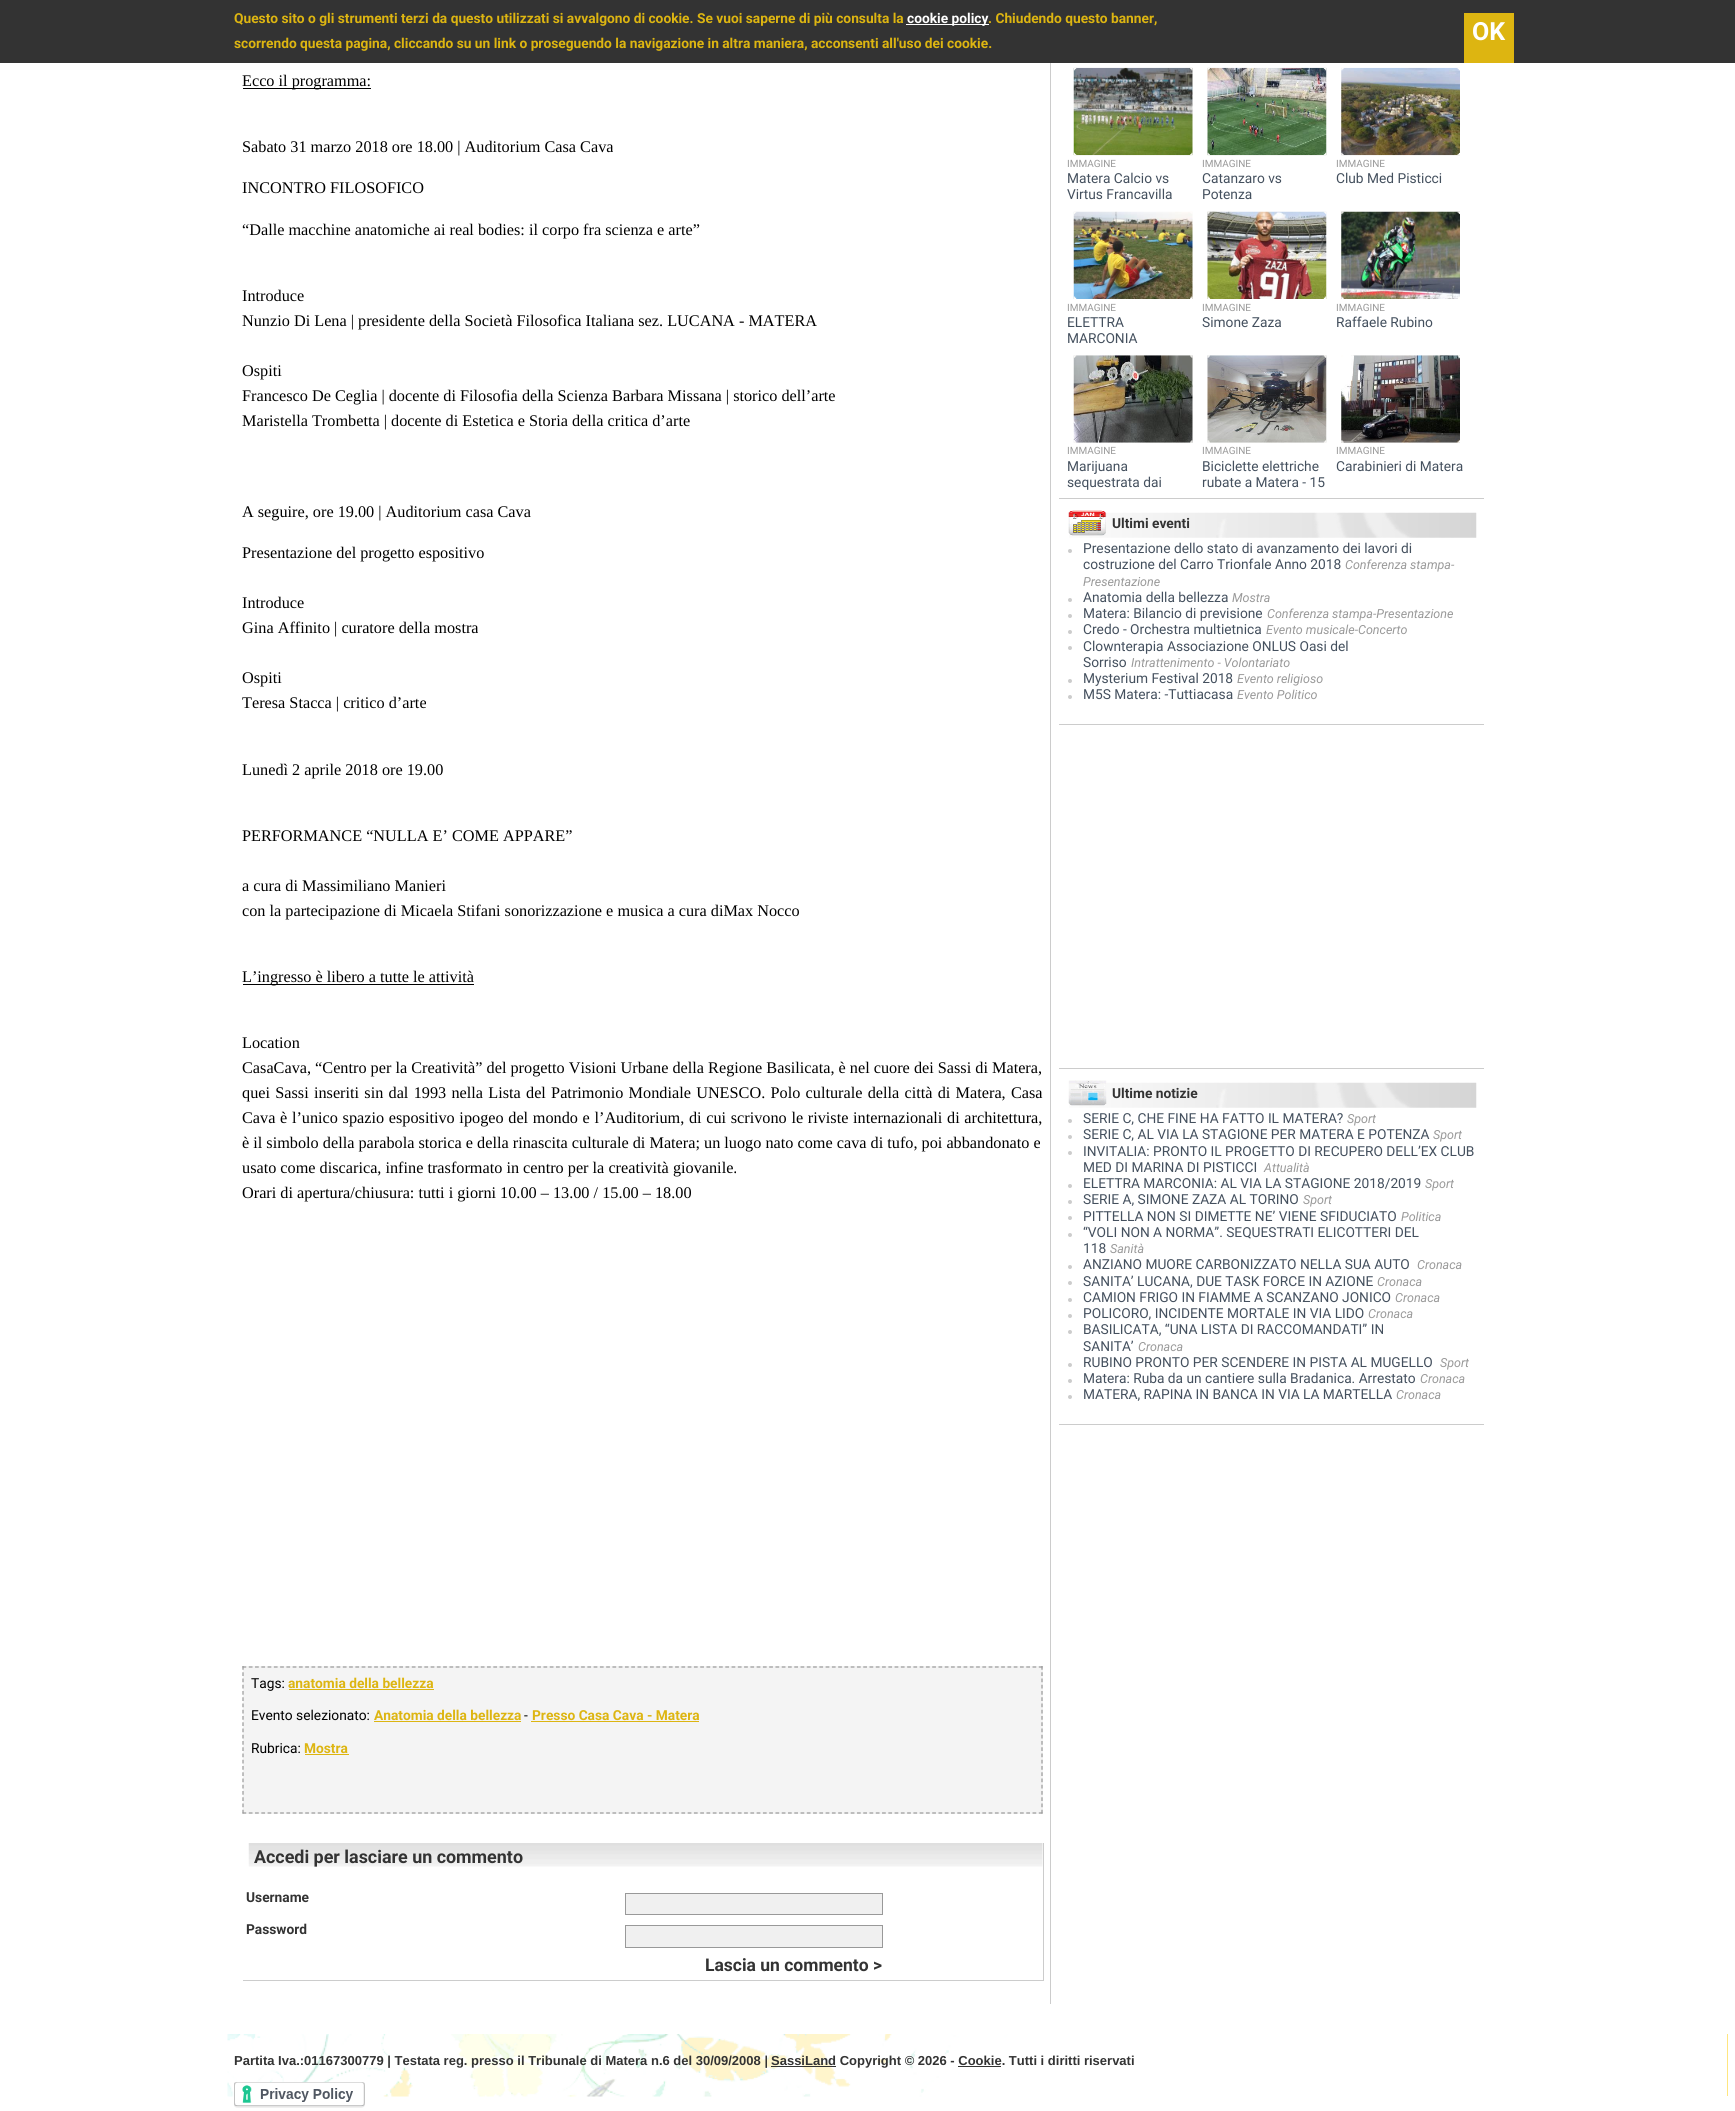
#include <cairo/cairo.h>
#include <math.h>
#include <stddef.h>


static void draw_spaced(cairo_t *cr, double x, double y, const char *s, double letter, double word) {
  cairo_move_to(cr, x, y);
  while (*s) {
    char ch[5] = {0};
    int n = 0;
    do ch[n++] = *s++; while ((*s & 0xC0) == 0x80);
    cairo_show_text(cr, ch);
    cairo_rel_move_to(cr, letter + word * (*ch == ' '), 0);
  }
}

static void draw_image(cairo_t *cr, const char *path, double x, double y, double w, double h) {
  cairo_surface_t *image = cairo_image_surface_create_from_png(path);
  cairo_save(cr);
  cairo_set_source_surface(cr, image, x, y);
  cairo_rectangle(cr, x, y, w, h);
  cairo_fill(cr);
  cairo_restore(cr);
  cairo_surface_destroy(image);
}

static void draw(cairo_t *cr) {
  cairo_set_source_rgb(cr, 1, 1, 1);
  cairo_paint(cr);
  cairo_set_source_rgb(cr, 51 / 255.0, 51 / 255.0, 51 / 255.0);
  cairo_rectangle(cr, 0, 0, 1735, 63);
  cairo_fill(cr);
  cairo_set_source_rgb(cr, 1, 1, 1);
  cairo_rectangle(cr, 906, 24, 83, 1);
  cairo_fill(cr);
  cairo_set_source_rgb(cr, 221 / 255.0, 181 / 255.0, 17 / 255.0);
  cairo_rectangle(cr, 1464, 13, 50, 50);
  cairo_fill(cr);
  cairo_set_source_rgb(cr, 204 / 255.0, 204 / 255.0, 204 / 255.0);
  cairo_rectangle(cr, 1050, 63, 1, 1941);
  cairo_fill(cr);
  cairo_set_source_rgb(cr, 0, 0, 0);
  cairo_rectangle(cr, 243, 88, 128, 1);
  cairo_fill(cr);
  cairo_rectangle(cr, 243, 984, 231, 1);
  cairo_fill(cr);
  cairo_set_source_rgb(cr, 244 / 255.0, 244 / 255.0, 244 / 255.0);
  cairo_rectangle(cr, 243, 1666, 800, 148);
  cairo_fill(cr);
  cairo_new_path(cr);
  cairo_move_to(cr, 242.5, 1667);
  cairo_line_to(cr, 1042.5, 1667);
  cairo_set_source_rgb(cr, 153 / 255.0, 153 / 255.0, 153 / 255.0);
  cairo_set_line_width(cr, 1.2);
  cairo_set_dash(cr, (double[]){3.75, 2.52}, 2, 0);
  cairo_stroke(cr);
  cairo_new_path(cr);
  cairo_move_to(cr, 1042, 1666);
  cairo_line_to(cr, 1042, 1814);
  cairo_set_dash(cr, (double[]){3.75, 2.5}, 2, 0);
  cairo_stroke(cr);
  cairo_new_path(cr);
  cairo_move_to(cr, 242.5, 1813);
  cairo_line_to(cr, 1042.5, 1813);
  cairo_set_dash(cr, (double[]){3.75, 2.52}, 2, 0);
  cairo_stroke(cr);
  cairo_new_path(cr);
  cairo_move_to(cr, 243, 1666);
  cairo_line_to(cr, 243, 1814);
  cairo_set_dash(cr, (double[]){3.75, 2.5}, 2, 0);
  cairo_stroke(cr);
  cairo_set_source_rgb(cr, 221 / 255.0, 181 / 255.0, 17 / 255.0);
  cairo_rectangle(cr, 289, 1689, 145, 1);
  cairo_fill(cr);
  cairo_rectangle(cr, 374, 1721, 147, 1);
  cairo_fill(cr);
  cairo_rectangle(cr, 531, 1721, 168, 1);
  cairo_fill(cr);
  cairo_rectangle(cr, 305, 1754, 44, 1);
  cairo_fill(cr);
  cairo_set_source_rgb(cr, 204 / 255.0, 204 / 255.0, 204 / 255.0);
  cairo_rectangle(cr, 1043, 1843, 1, 138);
  cairo_fill(cr);
  cairo_rectangle(cr, 243, 1980, 801, 1);
  cairo_fill(cr);
  draw_image(cr, "images/1.png", 248, 1843, 795, 24);
  cairo_set_source_rgb(cr, 240 / 255.0, 240 / 255.0, 240 / 255.0);
  cairo_rectangle(cr, 625.5, 1893.5, 257, 21);
  cairo_fill_preserve(cr);
  cairo_set_source_rgb(cr, 153 / 255.0, 153 / 255.0, 153 / 255.0);
  cairo_set_line_width(cr, 1);
  cairo_set_dash(cr, NULL, 0, 0);
  cairo_stroke(cr);
  cairo_set_source_rgb(cr, 240 / 255.0, 240 / 255.0, 240 / 255.0);
  cairo_rectangle(cr, 625.5, 1925.5, 257, 22);
  cairo_fill_preserve(cr);
  cairo_set_source_rgb(cr, 153 / 255.0, 153 / 255.0, 153 / 255.0);
  cairo_stroke(cr);
  cairo_set_source_rgb(cr, 204 / 255.0, 204 / 255.0, 204 / 255.0);
  cairo_rectangle(cr, 1059, 498, 425, 1);
  cairo_fill(cr);
  draw_image(cr, "images/2.png", 1073, 67, 120, 89);
  draw_image(cr, "images/3.png", 1073, 68, 120, 87);
  draw_image(cr, "images/4.png", 1207, 67, 120, 89);
  draw_image(cr, "images/5.png", 1207, 68, 120, 87);
  draw_image(cr, "images/6.png", 1341, 67, 119, 89);
  draw_image(cr, "images/7.png", 1341, 68, 119, 87);
  draw_image(cr, "images/8.png", 1073, 211, 120, 88);
  draw_image(cr, "images/9.png", 1073, 211, 120, 88);
  draw_image(cr, "images/10.png", 1207, 211, 120, 88);
  draw_image(cr, "images/11.png", 1207, 211, 120, 88);
  draw_image(cr, "images/12.png", 1341, 211, 119, 88);
  draw_image(cr, "images/13.png", 1341, 211, 119, 88);
  draw_image(cr, "images/14.png", 1073, 355, 120, 88);
  draw_image(cr, "images/15.png", 1073, 355, 120, 88);
  draw_image(cr, "images/16.png", 1207, 355, 120, 88);
  draw_image(cr, "images/17.png", 1207, 355, 120, 88);
  draw_image(cr, "images/18.png", 1341, 355, 119, 88);
  draw_image(cr, "images/19.png", 1341, 355, 119, 88);
  cairo_rectangle(cr, 1059, 724, 425, 1);
  cairo_fill(cr);
  draw_image(cr, "images/20.png", 1069, 512, 408, 26);
  draw_image(cr, "images/21.png", 1068, 510, 39, 26);
  cairo_arc(cr, 1070, 551, 2, 0, 2 * M_PI);
  cairo_fill(cr);
  cairo_arc(cr, 1070, 600, 2, 0, 2 * M_PI);
  cairo_fill(cr);
  cairo_arc(cr, 1070, 616, 2, 0, 2 * M_PI);
  cairo_fill(cr);
  cairo_arc(cr, 1070, 632, 2, 0, 2 * M_PI);
  cairo_fill(cr);
  cairo_arc(cr, 1070, 648, 2, 0, 2 * M_PI);
  cairo_fill(cr);
  cairo_arc(cr, 1070, 681, 2, 0, 2 * M_PI);
  cairo_fill(cr);
  cairo_arc(cr, 1070, 697, 2, 0, 2 * M_PI);
  cairo_fill(cr);
  cairo_rectangle(cr, 1059, 1068, 425, 1);
  cairo_fill(cr);
  cairo_rectangle(cr, 1059, 1424, 425, 1);
  cairo_fill(cr);
  draw_image(cr, "images/20.png", 1069, 1082, 408, 26);
  draw_image(cr, "images/22.png", 1068, 1080, 39, 26);
  cairo_arc(cr, 1070, 1121, 2, 0, 2 * M_PI);
  cairo_fill(cr);
  cairo_arc(cr, 1070, 1137, 2, 0, 2 * M_PI);
  cairo_fill(cr);
  cairo_arc(cr, 1070, 1153, 2, 0, 2 * M_PI);
  cairo_fill(cr);
  cairo_arc(cr, 1070, 1186, 2, 0, 2 * M_PI);
  cairo_fill(cr);
  cairo_arc(cr, 1070, 1202, 2, 0, 2 * M_PI);
  cairo_fill(cr);
  cairo_arc(cr, 1070, 1218, 2, 0, 2 * M_PI);
  cairo_fill(cr);
  cairo_arc(cr, 1070, 1235, 2, 0, 2 * M_PI);
  cairo_fill(cr);
  cairo_arc(cr, 1070, 1267, 2, 0, 2 * M_PI);
  cairo_fill(cr);
  cairo_arc(cr, 1070, 1283, 2, 0, 2 * M_PI);
  cairo_fill(cr);
  cairo_arc(cr, 1070, 1300, 2, 0, 2 * M_PI);
  cairo_fill(cr);
  cairo_arc(cr, 1070, 1316, 2, 0, 2 * M_PI);
  cairo_fill(cr);
  cairo_arc(cr, 1070, 1332, 2, 0, 2 * M_PI);
  cairo_fill(cr);
  cairo_arc(cr, 1070, 1365, 2, 0, 2 * M_PI);
  cairo_fill(cr);
  cairo_arc(cr, 1070, 1381, 2, 0, 2 * M_PI);
  cairo_fill(cr);
  cairo_arc(cr, 1070, 1397, 2, 0, 2 * M_PI);
  cairo_fill(cr);
  cairo_set_source_rgb(cr, 1, 204 / 255.0, 0);
  cairo_rectangle(cr, 1727, 2034, 1, 62);
  cairo_fill(cr);
  draw_image(cr, "images/23.png", 227, 2034, 1501, 63);
  cairo_set_source_rgb(cr, 51 / 255.0, 51 / 255.0, 51 / 255.0);
  cairo_rectangle(cr, 771, 2066, 65, 1);
  cairo_fill(cr);
  cairo_rectangle(cr, 958, 2066, 43, 1);
  cairo_fill(cr);
  draw_image(cr, "images/24.png", 234, 2082, 131, 26);
  cairo_select_font_face(cr, "Roboto", CAIRO_FONT_SLANT_NORMAL, CAIRO_FONT_WEIGHT_BOLD);
  cairo_set_font_size(cr, 13.75);
  cairo_set_source_rgb(cr, 221 / 255.0, 181 / 255.0, 17 / 255.0);
  cairo_move_to(cr, 234, 23);
  cairo_show_text(cr, "Questo sito o gli strumenti terzi da questo utilizzati si avvalgono di cookie. Se vuoi saperne di più consulta la");
  cairo_set_source_rgb(cr, 1, 1, 1);
  cairo_move_to(cr, 907, 23);
  cairo_show_text(cr, "cookie policy");
  cairo_set_source_rgb(cr, 221 / 255.0, 181 / 255.0, 17 / 255.0);
  cairo_move_to(cr, 988, 23);
  cairo_show_text(cr, ". Chiudendo questo banner,");
  cairo_set_font_size(cr, 25);
  cairo_set_source_rgb(cr, 1, 1, 1);
  cairo_move_to(cr, 1472, 40);
  cairo_show_text(cr, "OK");
  cairo_set_font_size(cr, 13.75);
  cairo_set_source_rgb(cr, 221 / 255.0, 181 / 255.0, 17 / 255.0);
  cairo_move_to(cr, 234, 48);
  cairo_show_text(cr, "scorrendo questa pagina, cliccando su un link o proseguendo la navigazione in altra maniera, acconsenti all'uso dei cookie.");
  cairo_select_font_face(cr, "Liberation Serif", CAIRO_FONT_SLANT_NORMAL, CAIRO_FONT_WEIGHT_NORMAL);
  cairo_set_font_size(cr, 16.25);
  cairo_set_source_rgb(cr, 0, 0, 0);
  cairo_move_to(cr, 242, 86);
  cairo_show_text(cr, "Ecco il programma:");
  cairo_move_to(cr, 242, 152);
  cairo_show_text(cr, "Sabato 31 marzo 2018 ore 18.00 | Auditorium Casa Cava");
  cairo_move_to(cr, 242, 193);
  cairo_show_text(cr, "INCONTRO FILOSOFICO");
  cairo_move_to(cr, 242, 235);
  cairo_show_text(cr, "“Dalle macchine anatomiche ai real bodies: il corpo fra scienza e arte”");
  cairo_move_to(cr, 242, 301);
  cairo_show_text(cr, "Introduce");
  cairo_move_to(cr, 242, 326);
  cairo_show_text(cr, "Nunzio Di Lena | presidente della Società Filosofica Italiana sez. LUCANA - MATERA");
  cairo_move_to(cr, 242, 376);
  cairo_show_text(cr, "Ospiti");
  cairo_move_to(cr, 242, 401);
  cairo_show_text(cr, "Francesco De Ceglia | docente di Filosofia della Scienza Barbara Missana | storico dell’arte");
  cairo_move_to(cr, 242, 426);
  cairo_show_text(cr, "Maristella Trombetta | docente di Estetica e Storia della critica d’arte");
  cairo_move_to(cr, 242, 517);
  cairo_show_text(cr, "A seguire, ore 19.00 | Auditorium casa Cava");
  cairo_move_to(cr, 242, 558);
  cairo_show_text(cr, "Presentazione del progetto espositivo");
  cairo_move_to(cr, 242, 608);
  cairo_show_text(cr, "Introduce");
  cairo_move_to(cr, 242, 633);
  cairo_show_text(cr, "Gina Affinito | curatore della mostra");
  cairo_move_to(cr, 242, 683);
  cairo_show_text(cr, "Ospiti");
  cairo_move_to(cr, 242, 708);
  cairo_show_text(cr, "Teresa Stacca | critico d’arte");
  cairo_move_to(cr, 242, 775);
  cairo_show_text(cr, "Lunedì 2 aprile 2018 ore 19.00");
  cairo_move_to(cr, 242, 841);
  cairo_show_text(cr, "PERFORMANCE “NULLA E’ COME APPARE”");
  cairo_move_to(cr, 242, 891);
  cairo_show_text(cr, "a cura di Massimiliano Manieri");
  cairo_move_to(cr, 242, 916);
  cairo_show_text(cr, "con la partecipazione di Micaela Stifani sonorizzazione e musica a cura diMax Nocco");
  cairo_move_to(cr, 242, 982);
  cairo_show_text(cr, "L’ingresso è libero a tutte le attività");
  cairo_move_to(cr, 242, 1048);
  cairo_show_text(cr, "Location");
  cairo_move_to(cr, 242, 1073);
  cairo_show_text(cr, "CasaCava, “Centro per la Creatività” del progetto Visioni Urbane della Regione Basilicata, è nel cuore dei Sassi di Matera,");
  draw_spaced(cr, 242, 1098, "quei Sassi inseriti sin dal 1993 nella Lista del Patrimonio Mondiale UNESCO. Polo culturale della città di Matera, Casa", 0, 1.2);
  draw_spaced(cr, 242, 1123, "Cava è l’unico spazio espositivo ipogeo del mondo e l’Auditorium, di cui scrivono le riviste internazionali di architettura,", 0, 0.6);
  cairo_move_to(cr, 242, 1148);
  cairo_show_text(cr, "è il simbolo della parabola storica e della rinascita culturale di Matera; un luogo nato come cava di tufo, poi abbandonato e");
  cairo_move_to(cr, 242, 1173);
  cairo_show_text(cr, "usato come discarica, infine trasformato in centro per la creatività giovanile.");
  cairo_move_to(cr, 242, 1198);
  cairo_show_text(cr, "Orari di apertura/chiusura: tutti i giorni 10.00 – 13.00 / 15.00 – 18.00");
  cairo_select_font_face(cr, "Roboto", CAIRO_FONT_SLANT_NORMAL, CAIRO_FONT_WEIGHT_NORMAL);
  cairo_set_font_size(cr, 13.75);
  cairo_move_to(cr, 251, 1688);
  cairo_show_text(cr, "Tags:");
  cairo_select_font_face(cr, "Roboto", CAIRO_FONT_SLANT_NORMAL, CAIRO_FONT_WEIGHT_BOLD);
  cairo_set_source_rgb(cr, 221 / 255.0, 181 / 255.0, 17 / 255.0);
  cairo_move_to(cr, 288, 1688);
  cairo_show_text(cr, "anatomia della bellezza");
  cairo_select_font_face(cr, "Roboto", CAIRO_FONT_SLANT_NORMAL, CAIRO_FONT_WEIGHT_NORMAL);
  cairo_set_source_rgb(cr, 0, 0, 0);
  cairo_move_to(cr, 251, 1720);
  cairo_show_text(cr, "Evento selezionato:");
  cairo_select_font_face(cr, "Roboto", CAIRO_FONT_SLANT_NORMAL, CAIRO_FONT_WEIGHT_BOLD);
  cairo_set_source_rgb(cr, 221 / 255.0, 181 / 255.0, 17 / 255.0);
  cairo_move_to(cr, 374, 1720);
  cairo_show_text(cr, "Anatomia della bellezza");
  cairo_select_font_face(cr, "Roboto", CAIRO_FONT_SLANT_NORMAL, CAIRO_FONT_WEIGHT_NORMAL);
  cairo_set_source_rgb(cr, 0, 0, 0);
  cairo_move_to(cr, 524, 1720);
  cairo_show_text(cr, "-");
  cairo_select_font_face(cr, "Roboto", CAIRO_FONT_SLANT_NORMAL, CAIRO_FONT_WEIGHT_BOLD);
  cairo_set_source_rgb(cr, 221 / 255.0, 181 / 255.0, 17 / 255.0);
  cairo_move_to(cr, 532, 1720);
  cairo_show_text(cr, "Presso Casa Cava - Matera");
  cairo_select_font_face(cr, "Roboto", CAIRO_FONT_SLANT_NORMAL, CAIRO_FONT_WEIGHT_NORMAL);
  cairo_set_source_rgb(cr, 0, 0, 0);
  cairo_move_to(cr, 251, 1753);
  cairo_show_text(cr, "Rubrica:");
  cairo_select_font_face(cr, "Roboto", CAIRO_FONT_SLANT_NORMAL, CAIRO_FONT_WEIGHT_BOLD);
  cairo_set_source_rgb(cr, 221 / 255.0, 181 / 255.0, 17 / 255.0);
  cairo_move_to(cr, 304, 1753);
  cairo_show_text(cr, "Mostra");
  cairo_set_font_size(cr, 17.9);
  cairo_set_source_rgb(cr, 51 / 255.0, 51 / 255.0, 51 / 255.0);
  cairo_move_to(cr, 254, 1863);
  cairo_show_text(cr, "Accedi per lasciare un commento");
  cairo_set_font_size(cr, 13.75);
  cairo_move_to(cr, 246, 1902);
  cairo_show_text(cr, "Username");
  cairo_move_to(cr, 246, 1934);
  cairo_show_text(cr, "Password");
  cairo_set_font_size(cr, 17.5);
  cairo_move_to(cr, 705, 1971);
  cairo_show_text(cr, "Lascia un commento >");
  cairo_select_font_face(cr, "Roboto", CAIRO_FONT_SLANT_NORMAL, CAIRO_FONT_WEIGHT_NORMAL);
  cairo_set_font_size(cr, 10);
  cairo_set_source_rgb(cr, 153 / 255.0, 153 / 255.0, 153 / 255.0);
  cairo_move_to(cr, 1067, 167);
  cairo_show_text(cr, "IMMAGINE");
  cairo_set_font_size(cr, 13.75);
  cairo_set_source_rgb(cr, 68 / 255.0, 80 / 255.0, 94 / 255.0);
  cairo_move_to(cr, 1067, 183);
  cairo_show_text(cr, "Matera Calcio vs");
  cairo_move_to(cr, 1067, 199);
  cairo_show_text(cr, "Virtus Francavilla");
  cairo_set_font_size(cr, 10);
  cairo_set_source_rgb(cr, 153 / 255.0, 153 / 255.0, 153 / 255.0);
  cairo_move_to(cr, 1202, 167);
  cairo_show_text(cr, "IMMAGINE");
  cairo_set_font_size(cr, 13.75);
  cairo_set_source_rgb(cr, 68 / 255.0, 80 / 255.0, 94 / 255.0);
  cairo_move_to(cr, 1202, 183);
  cairo_show_text(cr, "Catanzaro vs");
  cairo_move_to(cr, 1202, 199);
  cairo_show_text(cr, "Potenza");
  cairo_set_font_size(cr, 10);
  cairo_set_source_rgb(cr, 153 / 255.0, 153 / 255.0, 153 / 255.0);
  cairo_move_to(cr, 1336, 167);
  cairo_show_text(cr, "IMMAGINE");
  cairo_set_font_size(cr, 13.75);
  cairo_set_source_rgb(cr, 68 / 255.0, 80 / 255.0, 94 / 255.0);
  cairo_move_to(cr, 1336, 183);
  cairo_show_text(cr, "Club Med Pisticci");
  cairo_set_font_size(cr, 10);
  cairo_set_source_rgb(cr, 153 / 255.0, 153 / 255.0, 153 / 255.0);
  cairo_move_to(cr, 1067, 311);
  cairo_show_text(cr, "IMMAGINE");
  cairo_set_font_size(cr, 13.75);
  cairo_set_source_rgb(cr, 68 / 255.0, 80 / 255.0, 94 / 255.0);
  cairo_move_to(cr, 1067, 327);
  cairo_show_text(cr, "ELETTRA");
  cairo_move_to(cr, 1067, 343);
  cairo_show_text(cr, "MARCONIA");
  cairo_set_font_size(cr, 10);
  cairo_set_source_rgb(cr, 153 / 255.0, 153 / 255.0, 153 / 255.0);
  cairo_move_to(cr, 1202, 311);
  cairo_show_text(cr, "IMMAGINE");
  cairo_set_font_size(cr, 13.75);
  cairo_set_source_rgb(cr, 68 / 255.0, 80 / 255.0, 94 / 255.0);
  cairo_move_to(cr, 1202, 327);
  cairo_show_text(cr, "Simone Zaza");
  cairo_set_font_size(cr, 10);
  cairo_set_source_rgb(cr, 153 / 255.0, 153 / 255.0, 153 / 255.0);
  cairo_move_to(cr, 1336, 311);
  cairo_show_text(cr, "IMMAGINE");
  cairo_set_font_size(cr, 13.75);
  cairo_set_source_rgb(cr, 68 / 255.0, 80 / 255.0, 94 / 255.0);
  cairo_move_to(cr, 1336, 327);
  cairo_show_text(cr, "Raffaele Rubino");
  cairo_set_font_size(cr, 10);
  cairo_set_source_rgb(cr, 153 / 255.0, 153 / 255.0, 153 / 255.0);
  cairo_move_to(cr, 1067, 454);
  cairo_show_text(cr, "IMMAGINE");
  cairo_set_font_size(cr, 13.75);
  cairo_set_source_rgb(cr, 68 / 255.0, 80 / 255.0, 94 / 255.0);
  cairo_move_to(cr, 1067, 471);
  cairo_show_text(cr, "Marijuana");
  cairo_move_to(cr, 1067, 487);
  cairo_show_text(cr, "sequestrata dai");
  cairo_set_font_size(cr, 10);
  cairo_set_source_rgb(cr, 153 / 255.0, 153 / 255.0, 153 / 255.0);
  cairo_move_to(cr, 1202, 454);
  cairo_show_text(cr, "IMMAGINE");
  cairo_set_font_size(cr, 13.75);
  cairo_set_source_rgb(cr, 68 / 255.0, 80 / 255.0, 94 / 255.0);
  cairo_move_to(cr, 1202, 471);
  cairo_show_text(cr, "Biciclette elettriche");
  cairo_move_to(cr, 1202, 487);
  cairo_show_text(cr, "rubate a Matera - 15");
  cairo_set_font_size(cr, 10);
  cairo_set_source_rgb(cr, 153 / 255.0, 153 / 255.0, 153 / 255.0);
  cairo_move_to(cr, 1336, 454);
  cairo_show_text(cr, "IMMAGINE");
  cairo_set_font_size(cr, 13.75);
  cairo_set_source_rgb(cr, 68 / 255.0, 80 / 255.0, 94 / 255.0);
  cairo_move_to(cr, 1336, 471);
  cairo_show_text(cr, "Carabinieri di Matera");
  cairo_select_font_face(cr, "Roboto", CAIRO_FONT_SLANT_NORMAL, CAIRO_FONT_WEIGHT_BOLD);
  cairo_set_source_rgb(cr, 51 / 255.0, 51 / 255.0, 51 / 255.0);
  cairo_move_to(cr, 1112, 528);
  cairo_show_text(cr, "Ultimi eventi");
  cairo_select_font_face(cr, "Roboto", CAIRO_FONT_SLANT_NORMAL, CAIRO_FONT_WEIGHT_NORMAL);
  cairo_set_source_rgb(cr, 68 / 255.0, 80 / 255.0, 94 / 255.0);
  cairo_move_to(cr, 1083, 553);
  cairo_show_text(cr, "Presentazione dello stato di avanzamento dei lavori di");
  cairo_move_to(cr, 1083, 569);
  cairo_show_text(cr, "costruzione del Carro Trionfale Anno 2018");
  cairo_select_font_face(cr, "Roboto", CAIRO_FONT_SLANT_ITALIC, CAIRO_FONT_WEIGHT_NORMAL);
  cairo_set_font_size(cr, 12.5);
  cairo_set_source_rgb(cr, 153 / 255.0, 153 / 255.0, 153 / 255.0);
  cairo_move_to(cr, 1345, 569);
  cairo_show_text(cr, "Conferenza stampa-");
  cairo_move_to(cr, 1083, 586);
  cairo_show_text(cr, "Presentazione");
  cairo_select_font_face(cr, "Roboto", CAIRO_FONT_SLANT_NORMAL, CAIRO_FONT_WEIGHT_NORMAL);
  cairo_set_font_size(cr, 13.75);
  cairo_set_source_rgb(cr, 68 / 255.0, 80 / 255.0, 94 / 255.0);
  cairo_move_to(cr, 1083, 602);
  cairo_show_text(cr, "Anatomia della bellezza");
  cairo_select_font_face(cr, "Roboto", CAIRO_FONT_SLANT_ITALIC, CAIRO_FONT_WEIGHT_NORMAL);
  cairo_set_font_size(cr, 12.5);
  cairo_set_source_rgb(cr, 153 / 255.0, 153 / 255.0, 153 / 255.0);
  cairo_move_to(cr, 1232, 602);
  cairo_show_text(cr, "Mostra");
  cairo_select_font_face(cr, "Roboto", CAIRO_FONT_SLANT_NORMAL, CAIRO_FONT_WEIGHT_NORMAL);
  cairo_set_font_size(cr, 13.75);
  cairo_set_source_rgb(cr, 68 / 255.0, 80 / 255.0, 94 / 255.0);
  cairo_move_to(cr, 1083, 618);
  cairo_show_text(cr, "Matera: Bilancio di previsione");
  cairo_select_font_face(cr, "Roboto", CAIRO_FONT_SLANT_ITALIC, CAIRO_FONT_WEIGHT_NORMAL);
  cairo_set_font_size(cr, 12.5);
  cairo_set_source_rgb(cr, 153 / 255.0, 153 / 255.0, 153 / 255.0);
  cairo_move_to(cr, 1267, 618);
  cairo_show_text(cr, "Conferenza stampa-Presentazione");
  cairo_select_font_face(cr, "Roboto", CAIRO_FONT_SLANT_NORMAL, CAIRO_FONT_WEIGHT_NORMAL);
  cairo_set_font_size(cr, 13.75);
  cairo_set_source_rgb(cr, 68 / 255.0, 80 / 255.0, 94 / 255.0);
  cairo_move_to(cr, 1083, 634);
  cairo_show_text(cr, "Credo - Orchestra multietnica");
  cairo_select_font_face(cr, "Roboto", CAIRO_FONT_SLANT_ITALIC, CAIRO_FONT_WEIGHT_NORMAL);
  cairo_set_font_size(cr, 12.5);
  cairo_set_source_rgb(cr, 153 / 255.0, 153 / 255.0, 153 / 255.0);
  cairo_move_to(cr, 1266, 634);
  cairo_show_text(cr, "Evento musicale-Concerto");
  cairo_select_font_face(cr, "Roboto", CAIRO_FONT_SLANT_NORMAL, CAIRO_FONT_WEIGHT_NORMAL);
  cairo_set_font_size(cr, 13.75);
  cairo_set_source_rgb(cr, 68 / 255.0, 80 / 255.0, 94 / 255.0);
  cairo_move_to(cr, 1083, 651);
  cairo_show_text(cr, "Clownterapia Associazione ONLUS Oasi del");
  cairo_move_to(cr, 1083, 667);
  cairo_show_text(cr, "Sorriso");
  cairo_select_font_face(cr, "Roboto", CAIRO_FONT_SLANT_ITALIC, CAIRO_FONT_WEIGHT_NORMAL);
  cairo_set_font_size(cr, 12.5);
  cairo_set_source_rgb(cr, 153 / 255.0, 153 / 255.0, 153 / 255.0);
  cairo_move_to(cr, 1131, 667);
  cairo_show_text(cr, "Intrattenimento - Volontariato");
  cairo_select_font_face(cr, "Roboto", CAIRO_FONT_SLANT_NORMAL, CAIRO_FONT_WEIGHT_NORMAL);
  cairo_set_font_size(cr, 13.75);
  cairo_set_source_rgb(cr, 68 / 255.0, 80 / 255.0, 94 / 255.0);
  cairo_move_to(cr, 1083, 683);
  cairo_show_text(cr, "Mysterium Festival 2018");
  cairo_select_font_face(cr, "Roboto", CAIRO_FONT_SLANT_ITALIC, CAIRO_FONT_WEIGHT_NORMAL);
  cairo_set_font_size(cr, 12.5);
  cairo_set_source_rgb(cr, 153 / 255.0, 153 / 255.0, 153 / 255.0);
  cairo_move_to(cr, 1237, 683);
  cairo_show_text(cr, "Evento religioso");
  cairo_select_font_face(cr, "Roboto", CAIRO_FONT_SLANT_NORMAL, CAIRO_FONT_WEIGHT_NORMAL);
  cairo_set_font_size(cr, 13.75);
  cairo_set_source_rgb(cr, 68 / 255.0, 80 / 255.0, 94 / 255.0);
  cairo_move_to(cr, 1083, 699);
  cairo_show_text(cr, "M5S Matera: -Tuttiacasa");
  cairo_select_font_face(cr, "Roboto", CAIRO_FONT_SLANT_ITALIC, CAIRO_FONT_WEIGHT_NORMAL);
  cairo_set_font_size(cr, 12.5);
  cairo_set_source_rgb(cr, 153 / 255.0, 153 / 255.0, 153 / 255.0);
  cairo_move_to(cr, 1237, 699);
  cairo_show_text(cr, "Evento Politico");
  cairo_select_font_face(cr, "Roboto", CAIRO_FONT_SLANT_NORMAL, CAIRO_FONT_WEIGHT_BOLD);
  cairo_set_font_size(cr, 13.75);
  cairo_set_source_rgb(cr, 51 / 255.0, 51 / 255.0, 51 / 255.0);
  cairo_move_to(cr, 1112, 1098);
  cairo_show_text(cr, "Ultime notizie");
  cairo_select_font_face(cr, "Roboto", CAIRO_FONT_SLANT_NORMAL, CAIRO_FONT_WEIGHT_NORMAL);
  cairo_set_source_rgb(cr, 68 / 255.0, 80 / 255.0, 94 / 255.0);
  cairo_move_to(cr, 1083, 1123);
  cairo_show_text(cr, "SERIE C, CHE FINE HA FATTO IL MATERA?");
  cairo_select_font_face(cr, "Roboto", CAIRO_FONT_SLANT_ITALIC, CAIRO_FONT_WEIGHT_NORMAL);
  cairo_set_font_size(cr, 12.5);
  cairo_set_source_rgb(cr, 153 / 255.0, 153 / 255.0, 153 / 255.0);
  cairo_move_to(cr, 1347, 1123);
  cairo_show_text(cr, "Sport");
  cairo_select_font_face(cr, "Roboto", CAIRO_FONT_SLANT_NORMAL, CAIRO_FONT_WEIGHT_NORMAL);
  cairo_set_font_size(cr, 13.75);
  cairo_set_source_rgb(cr, 68 / 255.0, 80 / 255.0, 94 / 255.0);
  cairo_move_to(cr, 1083, 1139);
  cairo_show_text(cr, "SERIE C, AL VIA LA STAGIONE PER MATERA E POTENZA");
  cairo_select_font_face(cr, "Roboto", CAIRO_FONT_SLANT_ITALIC, CAIRO_FONT_WEIGHT_NORMAL);
  cairo_set_font_size(cr, 12.5);
  cairo_set_source_rgb(cr, 153 / 255.0, 153 / 255.0, 153 / 255.0);
  cairo_move_to(cr, 1433, 1139);
  cairo_show_text(cr, "Sport");
  cairo_select_font_face(cr, "Roboto", CAIRO_FONT_SLANT_NORMAL, CAIRO_FONT_WEIGHT_NORMAL);
  cairo_set_font_size(cr, 13.75);
  cairo_set_source_rgb(cr, 68 / 255.0, 80 / 255.0, 94 / 255.0);
  cairo_move_to(cr, 1083, 1156);
  cairo_show_text(cr, "INVITALIA: PRONTO IL PROGETTO DI RECUPERO DELL’EX CLUB");
  cairo_move_to(cr, 1083, 1172);
  cairo_show_text(cr, "MED DI MARINA DI PISTICCI");
  cairo_select_font_face(cr, "Roboto", CAIRO_FONT_SLANT_ITALIC, CAIRO_FONT_WEIGHT_NORMAL);
  cairo_set_font_size(cr, 12.5);
  cairo_set_source_rgb(cr, 153 / 255.0, 153 / 255.0, 153 / 255.0);
  cairo_move_to(cr, 1264, 1172);
  cairo_show_text(cr, "Attualità");
  cairo_select_font_face(cr, "Roboto", CAIRO_FONT_SLANT_NORMAL, CAIRO_FONT_WEIGHT_NORMAL);
  cairo_set_font_size(cr, 13.75);
  cairo_set_source_rgb(cr, 68 / 255.0, 80 / 255.0, 94 / 255.0);
  cairo_move_to(cr, 1083, 1188);
  cairo_show_text(cr, "ELETTRA MARCONIA: AL VIA LA STAGIONE 2018/2019");
  cairo_select_font_face(cr, "Roboto", CAIRO_FONT_SLANT_ITALIC, CAIRO_FONT_WEIGHT_NORMAL);
  cairo_set_font_size(cr, 12.5);
  cairo_set_source_rgb(cr, 153 / 255.0, 153 / 255.0, 153 / 255.0);
  cairo_move_to(cr, 1425, 1188);
  cairo_show_text(cr, "Sport");
  cairo_select_font_face(cr, "Roboto", CAIRO_FONT_SLANT_NORMAL, CAIRO_FONT_WEIGHT_NORMAL);
  cairo_set_font_size(cr, 13.75);
  cairo_set_source_rgb(cr, 68 / 255.0, 80 / 255.0, 94 / 255.0);
  cairo_move_to(cr, 1083, 1204);
  cairo_show_text(cr, "SERIE A, SIMONE ZAZA AL TORINO");
  cairo_select_font_face(cr, "Roboto", CAIRO_FONT_SLANT_ITALIC, CAIRO_FONT_WEIGHT_NORMAL);
  cairo_set_font_size(cr, 12.5);
  cairo_set_source_rgb(cr, 153 / 255.0, 153 / 255.0, 153 / 255.0);
  cairo_move_to(cr, 1303, 1204);
  cairo_show_text(cr, "Sport");
  cairo_select_font_face(cr, "Roboto", CAIRO_FONT_SLANT_NORMAL, CAIRO_FONT_WEIGHT_NORMAL);
  cairo_set_font_size(cr, 13.75);
  cairo_set_source_rgb(cr, 68 / 255.0, 80 / 255.0, 94 / 255.0);
  cairo_move_to(cr, 1083, 1221);
  cairo_show_text(cr, "PITTELLA NON SI DIMETTE NE’ VIENE SFIDUCIATO");
  cairo_select_font_face(cr, "Roboto", CAIRO_FONT_SLANT_ITALIC, CAIRO_FONT_WEIGHT_NORMAL);
  cairo_set_font_size(cr, 12.5);
  cairo_set_source_rgb(cr, 153 / 255.0, 153 / 255.0, 153 / 255.0);
  cairo_move_to(cr, 1401, 1221);
  cairo_show_text(cr, "Politica");
  cairo_select_font_face(cr, "Roboto", CAIRO_FONT_SLANT_NORMAL, CAIRO_FONT_WEIGHT_NORMAL);
  cairo_set_font_size(cr, 13.75);
  cairo_set_source_rgb(cr, 68 / 255.0, 80 / 255.0, 94 / 255.0);
  cairo_move_to(cr, 1083, 1237);
  cairo_show_text(cr, "“VOLI NON A NORMA”. SEQUESTRATI ELICOTTERI DEL");
  cairo_move_to(cr, 1083, 1253);
  cairo_show_text(cr, "118");
  cairo_select_font_face(cr, "Roboto", CAIRO_FONT_SLANT_ITALIC, CAIRO_FONT_WEIGHT_NORMAL);
  cairo_set_font_size(cr, 12.5);
  cairo_set_source_rgb(cr, 153 / 255.0, 153 / 255.0, 153 / 255.0);
  cairo_move_to(cr, 1110, 1253);
  cairo_show_text(cr, "Sanità");
  cairo_select_font_face(cr, "Roboto", CAIRO_FONT_SLANT_NORMAL, CAIRO_FONT_WEIGHT_NORMAL);
  cairo_set_font_size(cr, 13.75);
  cairo_set_source_rgb(cr, 68 / 255.0, 80 / 255.0, 94 / 255.0);
  cairo_move_to(cr, 1083, 1269);
  cairo_show_text(cr, "ANZIANO MUORE CARBONIZZATO NELLA SUA AUTO");
  cairo_select_font_face(cr, "Roboto", CAIRO_FONT_SLANT_ITALIC, CAIRO_FONT_WEIGHT_NORMAL);
  cairo_set_font_size(cr, 12.5);
  cairo_set_source_rgb(cr, 153 / 255.0, 153 / 255.0, 153 / 255.0);
  cairo_move_to(cr, 1417, 1269);
  cairo_show_text(cr, "Cronaca");
  cairo_select_font_face(cr, "Roboto", CAIRO_FONT_SLANT_NORMAL, CAIRO_FONT_WEIGHT_NORMAL);
  cairo_set_font_size(cr, 13.75);
  cairo_set_source_rgb(cr, 68 / 255.0, 80 / 255.0, 94 / 255.0);
  cairo_move_to(cr, 1083, 1286);
  cairo_show_text(cr, "SANITA’ LUCANA, DUE TASK FORCE IN AZIONE");
  cairo_select_font_face(cr, "Roboto", CAIRO_FONT_SLANT_ITALIC, CAIRO_FONT_WEIGHT_NORMAL);
  cairo_set_font_size(cr, 12.5);
  cairo_set_source_rgb(cr, 153 / 255.0, 153 / 255.0, 153 / 255.0);
  cairo_move_to(cr, 1377, 1286);
  cairo_show_text(cr, "Cronaca");
  cairo_select_font_face(cr, "Roboto", CAIRO_FONT_SLANT_NORMAL, CAIRO_FONT_WEIGHT_NORMAL);
  cairo_set_font_size(cr, 13.75);
  cairo_set_source_rgb(cr, 68 / 255.0, 80 / 255.0, 94 / 255.0);
  cairo_move_to(cr, 1083, 1302);
  cairo_show_text(cr, "CAMION FRIGO IN FIAMME A SCANZANO JONICO");
  cairo_select_font_face(cr, "Roboto", CAIRO_FONT_SLANT_ITALIC, CAIRO_FONT_WEIGHT_NORMAL);
  cairo_set_font_size(cr, 12.5);
  cairo_set_source_rgb(cr, 153 / 255.0, 153 / 255.0, 153 / 255.0);
  cairo_move_to(cr, 1395, 1302);
  cairo_show_text(cr, "Cronaca");
  cairo_select_font_face(cr, "Roboto", CAIRO_FONT_SLANT_NORMAL, CAIRO_FONT_WEIGHT_NORMAL);
  cairo_set_font_size(cr, 13.75);
  cairo_set_source_rgb(cr, 68 / 255.0, 80 / 255.0, 94 / 255.0);
  cairo_move_to(cr, 1083, 1318);
  cairo_show_text(cr, "POLICORO, INCIDENTE MORTALE IN VIA LIDO");
  cairo_select_font_face(cr, "Roboto", CAIRO_FONT_SLANT_ITALIC, CAIRO_FONT_WEIGHT_NORMAL);
  cairo_set_font_size(cr, 12.5);
  cairo_set_source_rgb(cr, 153 / 255.0, 153 / 255.0, 153 / 255.0);
  cairo_move_to(cr, 1368, 1318);
  cairo_show_text(cr, "Cronaca");
  cairo_select_font_face(cr, "Roboto", CAIRO_FONT_SLANT_NORMAL, CAIRO_FONT_WEIGHT_NORMAL);
  cairo_set_font_size(cr, 13.75);
  cairo_set_source_rgb(cr, 68 / 255.0, 80 / 255.0, 94 / 255.0);
  cairo_move_to(cr, 1083, 1334);
  cairo_show_text(cr, "BASILICATA, “UNA LISTA DI RACCOMANDATI” IN");
  cairo_move_to(cr, 1083, 1351);
  cairo_show_text(cr, "SANITA’");
  cairo_select_font_face(cr, "Roboto", CAIRO_FONT_SLANT_ITALIC, CAIRO_FONT_WEIGHT_NORMAL);
  cairo_set_font_size(cr, 12.5);
  cairo_set_source_rgb(cr, 153 / 255.0, 153 / 255.0, 153 / 255.0);
  cairo_move_to(cr, 1138, 1351);
  cairo_show_text(cr, "Cronaca");
  cairo_select_font_face(cr, "Roboto", CAIRO_FONT_SLANT_NORMAL, CAIRO_FONT_WEIGHT_NORMAL);
  cairo_set_font_size(cr, 13.75);
  cairo_set_source_rgb(cr, 68 / 255.0, 80 / 255.0, 94 / 255.0);
  cairo_move_to(cr, 1083, 1367);
  cairo_show_text(cr, "RUBINO PRONTO PER SCENDERE IN PISTA AL MUGELLO");
  cairo_select_font_face(cr, "Roboto", CAIRO_FONT_SLANT_ITALIC, CAIRO_FONT_WEIGHT_NORMAL);
  cairo_set_font_size(cr, 12.5);
  cairo_set_source_rgb(cr, 153 / 255.0, 153 / 255.0, 153 / 255.0);
  cairo_move_to(cr, 1440, 1367);
  cairo_show_text(cr, "Sport");
  cairo_select_font_face(cr, "Roboto", CAIRO_FONT_SLANT_NORMAL, CAIRO_FONT_WEIGHT_NORMAL);
  cairo_set_font_size(cr, 13.75);
  cairo_set_source_rgb(cr, 68 / 255.0, 80 / 255.0, 94 / 255.0);
  cairo_move_to(cr, 1083, 1383);
  cairo_show_text(cr, "Matera: Ruba da un cantiere sulla Bradanica. Arrestato");
  cairo_select_font_face(cr, "Roboto", CAIRO_FONT_SLANT_ITALIC, CAIRO_FONT_WEIGHT_NORMAL);
  cairo_set_font_size(cr, 12.5);
  cairo_set_source_rgb(cr, 153 / 255.0, 153 / 255.0, 153 / 255.0);
  cairo_move_to(cr, 1420, 1383);
  cairo_show_text(cr, "Cronaca");
  cairo_select_font_face(cr, "Roboto", CAIRO_FONT_SLANT_NORMAL, CAIRO_FONT_WEIGHT_NORMAL);
  cairo_set_font_size(cr, 13.75);
  cairo_set_source_rgb(cr, 68 / 255.0, 80 / 255.0, 94 / 255.0);
  cairo_move_to(cr, 1083, 1399);
  cairo_show_text(cr, "MATERA, RAPINA IN BANCA IN VIA LA MARTELLA");
  cairo_select_font_face(cr, "Roboto", CAIRO_FONT_SLANT_ITALIC, CAIRO_FONT_WEIGHT_NORMAL);
  cairo_set_font_size(cr, 12.5);
  cairo_set_source_rgb(cr, 153 / 255.0, 153 / 255.0, 153 / 255.0);
  cairo_move_to(cr, 1396, 1399);
  cairo_show_text(cr, "Cronaca");
  cairo_select_font_face(cr, "Liberation Sans", CAIRO_FONT_SLANT_NORMAL, CAIRO_FONT_WEIGHT_BOLD);
  cairo_set_font_size(cr, 13);
  cairo_set_source_rgb(cr, 51 / 255.0, 51 / 255.0, 51 / 255.0);
  cairo_move_to(cr, 234, 2065);
  cairo_show_text(cr, "Partita Iva.:01167300779 | Testata reg. presso il Tribunale di Matera n.6 del 30/09/2008 |");
  cairo_move_to(cr, 771, 2065);
  cairo_show_text(cr, "SassiLand Copyright © 2026 - Cookie. Tutti i diritti riservati");
}

int main(void) {
  cairo_surface_t *surface = cairo_image_surface_create(CAIRO_FORMAT_RGB24, 1735, 2111);
  cairo_t *cr = cairo_create(surface);
  cairo_font_options_t *options = cairo_font_options_create();
  cairo_font_options_set_hint_metrics(options, CAIRO_HINT_METRICS_OFF);
  cairo_font_options_set_hint_style(options, CAIRO_HINT_STYLE_NONE);
  cairo_set_font_options(cr, options);
  cairo_set_miter_limit(cr, 4);
  draw(cr);
  cairo_surface_write_to_png(surface, "out.png");
  cairo_font_options_destroy(options);
  cairo_destroy(cr);
  cairo_surface_destroy(surface);
  return 0;
}
